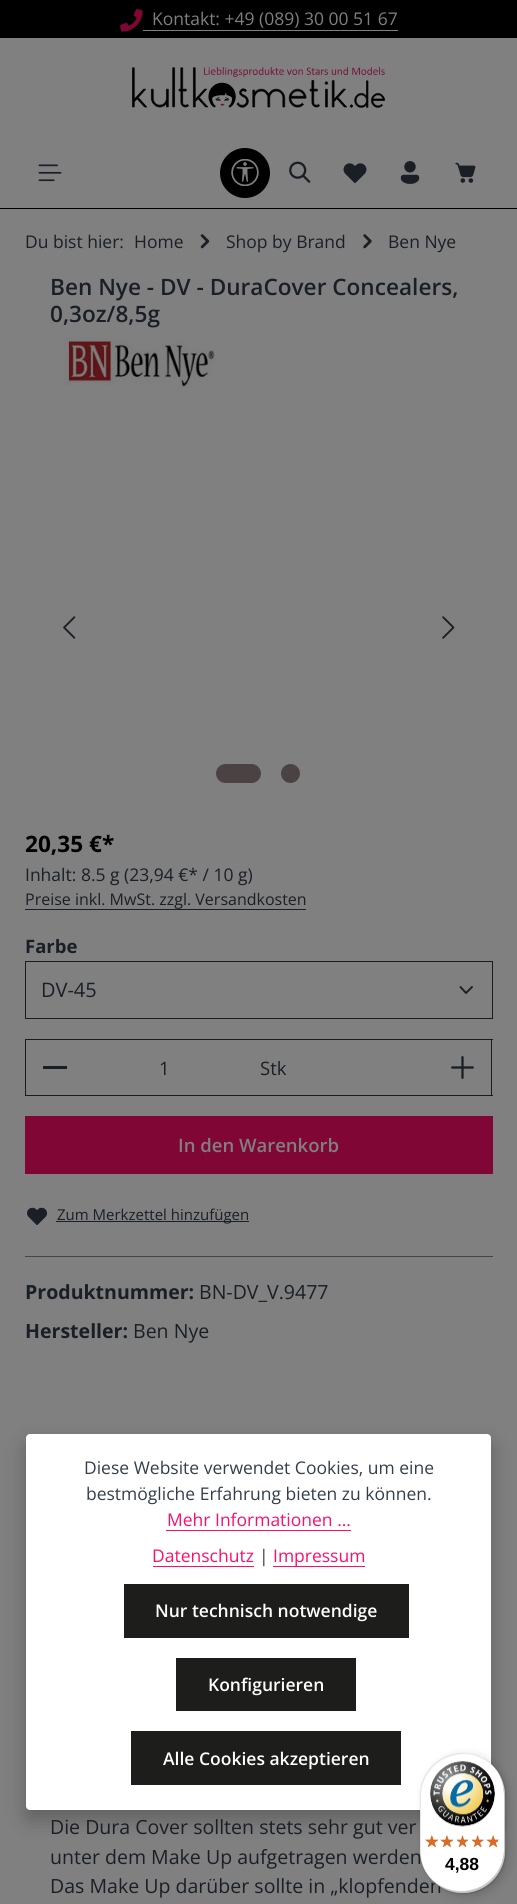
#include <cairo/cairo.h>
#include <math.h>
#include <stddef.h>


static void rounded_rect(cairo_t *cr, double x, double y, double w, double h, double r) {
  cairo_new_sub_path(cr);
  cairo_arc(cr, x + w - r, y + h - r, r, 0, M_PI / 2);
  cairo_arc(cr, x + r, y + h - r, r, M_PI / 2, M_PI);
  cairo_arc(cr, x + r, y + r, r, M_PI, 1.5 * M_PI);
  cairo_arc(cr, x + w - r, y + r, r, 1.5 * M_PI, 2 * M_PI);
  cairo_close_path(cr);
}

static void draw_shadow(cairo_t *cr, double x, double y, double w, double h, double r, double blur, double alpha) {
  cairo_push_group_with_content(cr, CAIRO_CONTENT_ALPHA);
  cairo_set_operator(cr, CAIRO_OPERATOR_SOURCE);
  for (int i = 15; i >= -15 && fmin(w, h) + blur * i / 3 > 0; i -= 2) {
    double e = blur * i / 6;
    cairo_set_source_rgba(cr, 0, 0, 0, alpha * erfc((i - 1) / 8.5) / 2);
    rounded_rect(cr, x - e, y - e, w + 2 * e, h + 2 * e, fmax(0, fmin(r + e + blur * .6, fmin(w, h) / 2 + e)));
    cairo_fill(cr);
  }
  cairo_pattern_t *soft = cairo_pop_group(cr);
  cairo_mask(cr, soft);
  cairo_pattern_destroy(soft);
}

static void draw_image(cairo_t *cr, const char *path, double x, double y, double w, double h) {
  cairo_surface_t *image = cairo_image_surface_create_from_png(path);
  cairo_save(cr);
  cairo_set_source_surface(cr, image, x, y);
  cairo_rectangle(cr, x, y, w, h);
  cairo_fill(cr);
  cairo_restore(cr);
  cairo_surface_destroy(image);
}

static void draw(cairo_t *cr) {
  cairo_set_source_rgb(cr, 128 / 255.0, 128 / 255.0, 128 / 255.0);
  cairo_paint(cr);
  cairo_set_source_rgb(cr, 0, 0, 0);
  cairo_rectangle(cr, 0, 0, 517, 38);
  cairo_fill(cr);
  draw_image(cr, "images/1.png", 120, 9, 23, 23);
  cairo_set_source_rgb(cr, 128 / 255.0, 128 / 255.0, 128 / 255.0);
  cairo_rectangle(cr, 143, 30, 255, 1);
  cairo_fill(cr);
  draw_image(cr, "images/2.png", 132, 67, 254, 41);
  draw_image(cr, "images/3.png", 38, 164, 24, 18);
  cairo_set_source_rgb(cr, 0, 0, 0);
  cairo_arc(cr, 245, 173, 25, 0, 2 * M_PI);
  cairo_fill(cr);
  draw_image(cr, "images/4.png", 231, 159, 28, 27);
  draw_image(cr, "images/5.png", 289, 161, 22, 22);
  draw_image(cr, "images/6.png", 343, 163, 24, 21);
  draw_image(cr, "images/7.png", 400, 161, 20, 23);
  draw_image(cr, "images/8.png", 455, 162, 21, 21);
  cairo_rectangle(cr, 0, 208, 517, 1);
  cairo_fill(cr);
  draw_image(cr, "images/9.png", 200, 234, 10, 15);
  draw_image(cr, "images/10.png", 363, 234, 9, 15);
  draw_image(cr, "images/11.png", 64, 337, 151, 51);
  draw_image(cr, "images/12.png", 63, 616, 13, 23);
  draw_image(cr, "images/13.png", 442, 616, 13, 23);
  cairo_set_source_rgb(cr, 75 / 255.0, 67 / 255.0, 67 / 255.0);
  rounded_rect(cr, 217.5, 765.5, 42, 16, 8);
  cairo_fill_preserve(cr);
  cairo_set_line_width(cr, 3);
  cairo_stroke(cr);
  cairo_arc(cr, 290.5, 773.5, 8, 0, 2 * M_PI);
  cairo_fill_preserve(cr);
  cairo_stroke(cr);
  cairo_set_source_rgb(cr, 25 / 255.0, 31 / 255.0, 37 / 255.0);
  cairo_rectangle(cr, 25, 909, 281, 1);
  cairo_fill(cr);
  cairo_new_path(cr);
  cairo_move_to(cr, 460.5, 987);
  cairo_line_to(cr, 466, 993);
  cairo_line_to(cr, 472, 987);
  cairo_set_line_width(cr, 1.9);
  cairo_set_line_cap(cr, CAIRO_LINE_CAP_ROUND);
  cairo_set_line_join(cr, CAIRO_LINE_JOIN_ROUND);
  cairo_stroke(cr);
  cairo_rectangle(cr, 25.5, 961.5, 467, 57);
  cairo_set_source_rgb(cr, 29 / 255.0, 26 / 255.0, 26 / 255.0);
  cairo_set_line_width(cr, 1);
  cairo_set_line_cap(cr, CAIRO_LINE_CAP_BUTT);
  cairo_set_line_join(cr, CAIRO_LINE_JOIN_MITER);
  cairo_stroke(cr);
  cairo_rectangle(cr, 25, 1039, 468, 1);
  cairo_fill(cr);
  cairo_rectangle(cr, 25, 1095, 410, 1);
  cairo_fill(cr);
  cairo_rectangle(cr, 25, 1039, 1, 57);
  cairo_fill(cr);
  cairo_set_source_rgb(cr, 25 / 255.0, 31 / 255.0, 37 / 255.0);
  cairo_rectangle(cr, 43, 1066, 24, 3);
  cairo_fill(cr);
  cairo_set_source_rgb(cr, 29 / 255.0, 26 / 255.0, 26 / 255.0);
  cairo_rectangle(cr, 491, 1039, 1, 57);
  cairo_fill(cr);
  cairo_rectangle(cr, 434, 1095, 59, 1);
  cairo_fill(cr);
  draw_image(cr, "images/14.png", 451, 1056, 23, 23);
  cairo_set_source_rgb(cr, 128 / 255.0, 7 / 255.0, 53 / 255.0);
  cairo_rectangle(cr, 25, 1116, 468, 58);
  cairo_fill(cr);
  draw_image(cr, "images/15.png", 27, 1207, 21, 18);
  cairo_set_source_rgb(cr, 25 / 255.0, 31 / 255.0, 37 / 255.0);
  cairo_rectangle(cr, 56, 1221, 193, 1);
  cairo_fill(cr);
  cairo_set_source_rgb(cr, 75 / 255.0, 67 / 255.0, 67 / 255.0);
  cairo_rectangle(cr, 25, 1256, 468, 1);
  cairo_fill(cr);
  cairo_set_source_rgb(cr, 0, 0, 0);
  draw_shadow(cr, 26, 1444, 465, 376, 4, 10, 0.25);
  cairo_set_source_rgb(cr, 1, 1, 1);
  rounded_rect(cr, 26, 1434, 465, 376, 4);
  cairo_fill(cr);
  cairo_set_source_rgb(cr, 1, 13 / 255.0, 106 / 255.0);
  cairo_rectangle(cr, 166, 1530, 185, 1);
  cairo_fill(cr);
  cairo_rectangle(cr, 153, 1566, 101, 1);
  cairo_fill(cr);
  cairo_rectangle(cr, 273, 1566, 92, 1);
  cairo_fill(cr);
  cairo_set_source_rgb(cr, 29 / 255.0, 29 / 255.0, 28 / 255.0);
  cairo_rectangle(cr, 124, 1584, 285, 54);
  cairo_fill(cr);
  cairo_rectangle(cr, 176, 1658, 180, 53);
  cairo_fill(cr);
  cairo_rectangle(cr, 131, 1731, 270, 54);
  cairo_fill(cr);
  cairo_set_source_rgb(cr, 0, 0, 0);
  draw_shadow(cr, 424, 1756, 85, 140, 42.5, 5, 0.15);
  draw_shadow(cr, 421, 1754, 85, 140, 42.5, 1, 0.15);
  cairo_select_font_face(cr, "Open Sans", CAIRO_FONT_SLANT_NORMAL, CAIRO_FONT_WEIGHT_NORMAL);
  cairo_set_font_size(cr, 17.5);
  cairo_set_source_rgb(cr, 128 / 255.0, 128 / 255.0, 128 / 255.0);
  cairo_move_to(cr, 152, 25);
  cairo_show_text(cr, "Kontakt: +49 (089) 30 00 51 67");
  cairo_set_source_rgb(cr, 25 / 255.0, 31 / 255.0, 37 / 255.0);
  cairo_move_to(cr, 25, 248);
  cairo_show_text(cr, "Du bist hier:");
  cairo_move_to(cr, 134, 248);
  cairo_show_text(cr, "Home");
  cairo_move_to(cr, 226, 248);
  cairo_show_text(cr, "Shop by Brand");
  cairo_move_to(cr, 388, 248);
  cairo_show_text(cr, "Ben Nye");
  cairo_select_font_face(cr, "Open Sans SemiBold", CAIRO_FONT_SLANT_NORMAL, CAIRO_FONT_WEIGHT_NORMAL);
  cairo_set_font_size(cr, 22.6);
  cairo_move_to(cr, 50, 295);
  cairo_show_text(cr, "Ben Nye - DV - DuraCover Concealers,");
  cairo_move_to(cr, 50, 322);
  cairo_show_text(cr, "0,3oz/8,5g");
  cairo_select_font_face(cr, "Open Sans", CAIRO_FONT_SLANT_NORMAL, CAIRO_FONT_WEIGHT_BOLD);
  cairo_set_source_rgb(cr, 0, 0, 0);
  cairo_move_to(cr, 25, 852);
  cairo_show_text(cr, "20,35 €*");
  cairo_select_font_face(cr, "Open Sans", CAIRO_FONT_SLANT_NORMAL, CAIRO_FONT_WEIGHT_NORMAL);
  cairo_set_font_size(cr, 17.5);
  cairo_set_source_rgb(cr, 25 / 255.0, 31 / 255.0, 37 / 255.0);
  cairo_move_to(cr, 25, 881);
  cairo_show_text(cr, "Inhalt: 8.5 g (23,94 €* / 10 g)");
  cairo_set_font_size(cr, 16);
  cairo_move_to(cr, 25, 905);
  cairo_show_text(cr, "Preise inkl. MwSt. zzgl. Versandkosten");
  cairo_select_font_face(cr, "Open Sans", CAIRO_FONT_SLANT_NORMAL, CAIRO_FONT_WEIGHT_BOLD);
  cairo_set_font_size(cr, 18.5);
  cairo_move_to(cr, 25, 953);
  cairo_show_text(cr, "Farbe");
  cairo_select_font_face(cr, "Open Sans", CAIRO_FONT_SLANT_NORMAL, CAIRO_FONT_WEIGHT_NORMAL);
  cairo_set_font_size(cr, 20);
  cairo_move_to(cr, 41, 997);
  cairo_show_text(cr, "DV-45");
  cairo_set_font_size(cr, 18.5);
  cairo_move_to(cr, 159, 1075);
  cairo_show_text(cr, "1");
  cairo_move_to(cr, 260, 1075);
  cairo_show_text(cr, "Stk");
  cairo_select_font_face(cr, "Open Sans SemiBold", CAIRO_FONT_SLANT_NORMAL, CAIRO_FONT_WEIGHT_NORMAL);
  cairo_set_source_rgb(cr, 128 / 255.0, 128 / 255.0, 128 / 255.0);
  cairo_move_to(cr, 178, 1152);
  cairo_show_text(cr, "In den Warenkorb");
  cairo_select_font_face(cr, "Open Sans", CAIRO_FONT_SLANT_NORMAL, CAIRO_FONT_WEIGHT_NORMAL);
  cairo_set_font_size(cr, 15);
  cairo_set_source_rgb(cr, 25 / 255.0, 31 / 255.0, 37 / 255.0);
  cairo_move_to(cr, 57, 1220);
  cairo_show_text(cr, "Zum Merkzettel hinzufügen");
  cairo_select_font_face(cr, "Open Sans", CAIRO_FONT_SLANT_NORMAL, CAIRO_FONT_WEIGHT_BOLD);
  cairo_set_font_size(cr, 19.55);
  cairo_move_to(cr, 25, 1299);
  cairo_show_text(cr, "Produktnummer:");
  cairo_select_font_face(cr, "Open Sans", CAIRO_FONT_SLANT_NORMAL, CAIRO_FONT_WEIGHT_NORMAL);
  cairo_move_to(cr, 199, 1299);
  cairo_show_text(cr, "BN-DV_V.9477");
  cairo_select_font_face(cr, "Open Sans", CAIRO_FONT_SLANT_NORMAL, CAIRO_FONT_WEIGHT_BOLD);
  cairo_move_to(cr, 25, 1338);
  cairo_show_text(cr, "Hersteller:");
  cairo_select_font_face(cr, "Open Sans", CAIRO_FONT_SLANT_NORMAL, CAIRO_FONT_WEIGHT_NORMAL);
  cairo_move_to(cr, 133, 1338);
  cairo_show_text(cr, "Ben Nye");
  cairo_move_to(cr, 50, 1834);
  cairo_show_text(cr, "Die Dura Cover sollten stets sehr gut ver");
  cairo_move_to(cr, 50, 1864);
  cairo_show_text(cr, "unter dem Make Up aufgetragen werden");
  cairo_move_to(cr, 50, 1893);
  cairo_show_text(cr, "Das Make Up darüber sollte in „klopfenden");
  cairo_set_font_size(cr, 17.5);
  cairo_set_source_rgb(cr, 50 / 255.0, 62 / 255.0, 74 / 255.0);
  cairo_move_to(cr, 84, 1474);
  cairo_show_text(cr, "Diese Website verwendet Cookies, um eine");
  cairo_move_to(cr, 86, 1500);
  cairo_show_text(cr, "bestmögliche Erfahrung bieten zu können.");
  cairo_set_source_rgb(cr, 1, 13 / 255.0, 106 / 255.0);
  cairo_move_to(cr, 167, 1526);
  cairo_show_text(cr, "Mehr Informationen ...");
  cairo_move_to(cr, 152, 1562);
  cairo_show_text(cr, "Datenschutz");
  cairo_set_source_rgb(cr, 50 / 255.0, 62 / 255.0, 74 / 255.0);
  cairo_move_to(cr, 259, 1562);
  cairo_show_text(cr, "|");
  cairo_set_source_rgb(cr, 1, 13 / 255.0, 106 / 255.0);
  cairo_move_to(cr, 273, 1562);
  cairo_show_text(cr, "Impressum");
  cairo_select_font_face(cr, "Open Sans SemiBold", CAIRO_FONT_SLANT_NORMAL, CAIRO_FONT_WEIGHT_NORMAL);
  cairo_set_source_rgb(cr, 1, 1, 1);
  cairo_move_to(cr, 155, 1617);
  cairo_show_text(cr, "Nur technisch notwendige");
  cairo_move_to(cr, 208, 1691);
  cairo_show_text(cr, "Konfigurieren");
  cairo_move_to(cr, 163, 1765);
  cairo_show_text(cr, "Alle Cookies akzeptieren");
  rounded_rect(cr, 420, 1753, 85, 140, 42.5);
  cairo_fill(cr);
  cairo_set_source_rgba(cr, 0, 0, 0, 0.1);
  cairo_new_path(cr);
  cairo_move_to(cr, 464, 1754);
  cairo_curve_to(cr, 474, 1754, 483, 1758, 491, 1764);
  cairo_curve_to(cr, 483, 1757, 473, 1753, 462, 1753);
  cairo_curve_to(cr, 439, 1753, 420, 1772, 420, 1796);
  cairo_line_to(cr, 420, 1850);
  cairo_curve_to(cr, 420, 1863, 426, 1875, 435, 1883);
  cairo_curve_to(cr, 426, 1875, 421, 1864, 421, 1851);
  cairo_line_to(cr, 421, 1796);
  cairo_curve_to(cr, 421, 1773, 440, 1754, 464, 1754);
  cairo_close_path(cr);
  cairo_fill(cr);
  cairo_set_source_rgba(cr, 0, 0, 0, 0.2);
  cairo_new_path(cr);
  cairo_move_to(cr, 425, 1870);
  cairo_curve_to(cr, 432, 1884, 446, 1893, 462, 1893);
  cairo_curve_to(cr, 486, 1893, 505, 1874, 505, 1850);
  cairo_line_to(cr, 505, 1796);
  cairo_curve_to(cr, 505, 1788, 503, 1780, 499, 1774);
  cairo_curve_to(cr, 502, 1780, 504, 1787, 504, 1794);
  cairo_line_to(cr, 504, 1849);
  cairo_curve_to(cr, 504, 1872, 485, 1891, 461, 1891);
  cairo_curve_to(cr, 446, 1891, 432, 1883, 425, 1870);
  cairo_close_path(cr);
  cairo_fill(cr);
  cairo_set_source_rgba(cr, 50 / 255.0, 50 / 255.0, 50 / 255.0, 0.2);
  cairo_new_path(cr);
  cairo_move_to(cr, 430, 1878);
  cairo_curve_to(cr, 451, 1902, 489, 1896, 502, 1867);
  cairo_curve_to(cr, 507, 1855, 505, 1837, 505, 1823);
  cairo_curve_to(cr, 505, 1804, 508, 1783, 494, 1767);
  cairo_curve_to(cr, 507, 1783, 504, 1803, 504, 1822);
  cairo_curve_to(cr, 504, 1835, 506, 1853, 501, 1866);
  cairo_curve_to(cr, 489, 1895, 451, 1901, 430, 1878);
  cairo_close_path(cr);
  cairo_fill(cr);
  cairo_set_source_rgba(cr, 1, 1, 1, 0.3);
  cairo_new_path(cr);
  cairo_move_to(cr, 430, 1878);
  cairo_curve_to(cr, 451, 1902, 489, 1896, 502, 1867);
  cairo_curve_to(cr, 507, 1855, 505, 1837, 505, 1823);
  cairo_curve_to(cr, 505, 1804, 508, 1783, 494, 1767);
  cairo_curve_to(cr, 507, 1783, 504, 1803, 504, 1822);
  cairo_curve_to(cr, 504, 1835, 506, 1853, 501, 1866);
  cairo_curve_to(cr, 489, 1895, 451, 1901, 430, 1878);
  cairo_close_path(cr);
  cairo_fill(cr);
  draw_image(cr, "images/16.png", 430, 1761, 65, 66);
  draw_image(cr, "images/17.png", 425, 1835, 14, 13);
  draw_image(cr, "images/18.png", 441, 1835, 13, 12);
  draw_image(cr, "images/19.png", 457, 1835, 11, 13);
  draw_image(cr, "images/20.png", 472, 1835, 13, 12);
  draw_image(cr, "images/21.png", 486, 1835, 14, 13);
  draw_image(cr, "images/22.png", 425, 1835, 14, 13);
  draw_image(cr, "images/23.png", 440, 1835, 14, 13);
  draw_image(cr, "images/24.png", 456, 1835, 13, 13);
  draw_image(cr, "images/25.png", 471, 1835, 13, 13);
  draw_image(cr, "images/26.png", 486, 1835, 12, 13);
  cairo_select_font_face(cr, "Liberation Sans", CAIRO_FONT_SLANT_NORMAL, CAIRO_FONT_WEIGHT_BOLD);
  cairo_set_source_rgb(cr, 0, 0, 0);
  cairo_move_to(cr, 445, 1870);
  cairo_show_text(cr, "4,88");
}

int main(void) {
  cairo_surface_t *surface = cairo_image_surface_create(CAIRO_FORMAT_RGB24, 517, 1904);
  cairo_t *cr = cairo_create(surface);
  cairo_font_options_t *options = cairo_font_options_create();
  cairo_font_options_set_hint_metrics(options, CAIRO_HINT_METRICS_OFF);
  cairo_font_options_set_hint_style(options, CAIRO_HINT_STYLE_NONE);
  cairo_set_font_options(cr, options);
  cairo_set_miter_limit(cr, 4);
  draw(cr);
  cairo_surface_write_to_png(surface, "out.png");
  cairo_font_options_destroy(options);
  cairo_destroy(cr);
  cairo_surface_destroy(surface);
  return 0;
}
